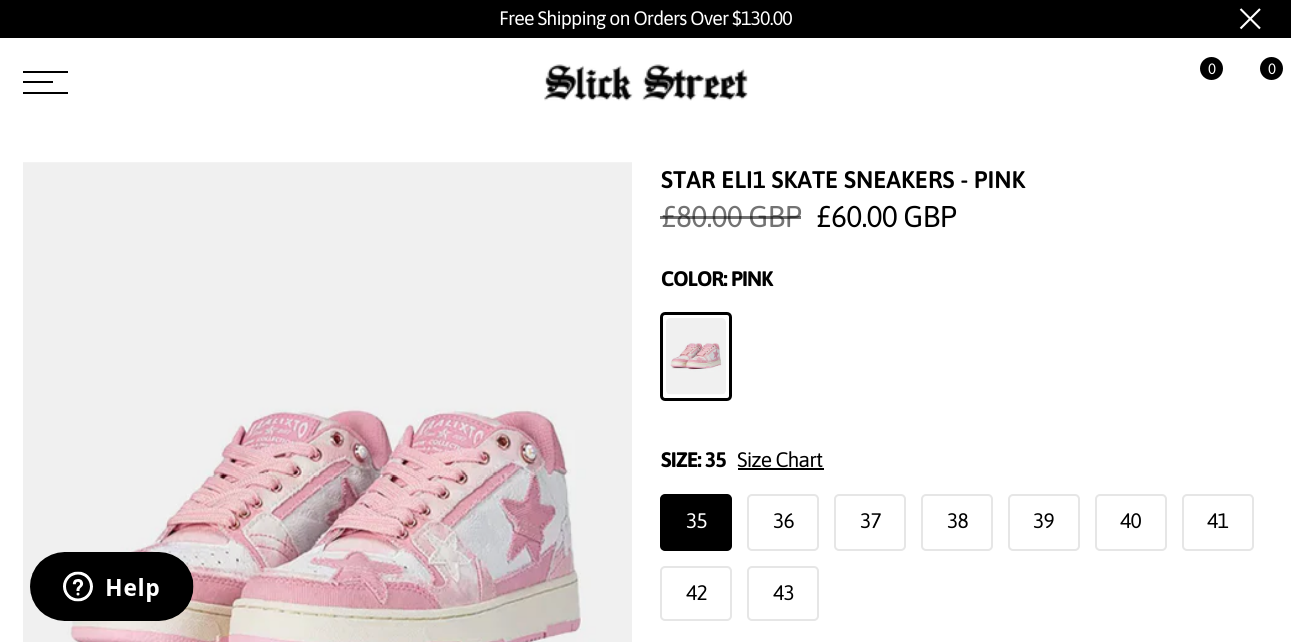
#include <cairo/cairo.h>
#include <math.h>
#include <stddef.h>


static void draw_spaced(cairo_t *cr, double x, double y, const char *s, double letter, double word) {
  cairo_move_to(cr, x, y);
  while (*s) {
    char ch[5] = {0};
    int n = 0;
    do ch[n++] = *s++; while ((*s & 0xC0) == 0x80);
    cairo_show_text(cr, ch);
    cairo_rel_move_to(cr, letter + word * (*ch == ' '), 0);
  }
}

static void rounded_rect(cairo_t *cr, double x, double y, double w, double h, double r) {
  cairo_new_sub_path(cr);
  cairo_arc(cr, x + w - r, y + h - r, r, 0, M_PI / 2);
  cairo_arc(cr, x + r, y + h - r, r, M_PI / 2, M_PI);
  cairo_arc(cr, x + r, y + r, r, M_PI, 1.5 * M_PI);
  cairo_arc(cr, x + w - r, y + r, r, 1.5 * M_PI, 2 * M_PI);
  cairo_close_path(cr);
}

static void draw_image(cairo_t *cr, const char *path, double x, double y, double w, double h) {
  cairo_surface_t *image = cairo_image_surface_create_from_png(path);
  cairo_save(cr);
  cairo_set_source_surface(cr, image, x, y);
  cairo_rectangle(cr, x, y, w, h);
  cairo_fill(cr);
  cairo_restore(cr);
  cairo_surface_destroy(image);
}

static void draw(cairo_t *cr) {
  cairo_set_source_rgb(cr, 1, 1, 1);
  cairo_paint(cr);
  cairo_set_source_rgb(cr, 0, 0, 0);
  cairo_rectangle(cr, 0, 0, 1291, 38);
  cairo_fill(cr);
  cairo_new_path(cr);
  cairo_move_to(cr, 1260, 9);
  cairo_line_to(cr, 1240.5, 28.5);
  cairo_move_to(cr, 1260, 28.5);
  cairo_line_to(cr, 1240.5, 9);
  cairo_set_source_rgb(cr, 1, 1, 1);
  cairo_set_line_width(cr, 2.1);
  cairo_stroke(cr);
  cairo_set_source_rgb(cr, 0, 0, 0);
  cairo_rectangle(cr, 23, 71, 45, 2);
  cairo_fill(cr);
  cairo_rectangle(cr, 23, 81, 30, 2);
  cairo_fill(cr);
  cairo_rectangle(cr, 23, 92, 45, 2);
  cairo_fill(cr);
  draw_image(cr, "images/1.png", 544, 64, 204, 37);
  cairo_arc(cr, 1211.5, 68.5, 11.5, 0, 2 * M_PI);
  cairo_fill(cr);
  cairo_arc(cr, 1271.5, 68.5, 11.5, 0, 2 * M_PI);
  cairo_fill(cr);
  draw_image(cr, "images/3.png", 23, 162, 609, 480);
  draw_image(cr, "images/2.png", 30, 552, 164, 69);
  rounded_rect(cr, 661.5, 313.5, 69, 86, 3.5);
  cairo_set_line_width(cr, 3);
  cairo_stroke(cr);
  draw_image(cr, "images/4.png", 666, 318, 60, 77);
  cairo_rectangle(cr, 738, 468, 86, 2);
  cairo_fill(cr);
  rounded_rect(cr, 661, 495, 70, 55, 4);
  cairo_fill_preserve(cr);
  cairo_set_line_width(cr, 2);
  cairo_stroke(cr);
  rounded_rect(cr, 748, 495, 70, 55, 4);
  cairo_set_source_rgb(cr, 230 / 255.0, 230 / 255.0, 230 / 255.0);
  cairo_stroke(cr);
  rounded_rect(cr, 835, 495, 70, 55, 4);
  cairo_stroke(cr);
  rounded_rect(cr, 922, 495, 70, 55, 4);
  cairo_stroke(cr);
  rounded_rect(cr, 1009, 495, 70, 55, 4);
  cairo_stroke(cr);
  rounded_rect(cr, 1096, 495, 70, 55, 4);
  cairo_stroke(cr);
  rounded_rect(cr, 1183, 495, 70, 55, 4);
  cairo_stroke(cr);
  rounded_rect(cr, 661, 567, 70, 53, 4);
  cairo_stroke(cr);
  rounded_rect(cr, 748, 567, 70, 53, 4);
  cairo_stroke(cr);
  cairo_select_font_face(cr, "Asap", CAIRO_FONT_SLANT_NORMAL, CAIRO_FONT_WEIGHT_NORMAL);
  cairo_set_font_size(cr, 19.5);
  cairo_set_source_rgb(cr, 1, 1, 1);
  draw_spaced(cr, 499, 25, "Free Shipping on Orders Over $130.00", -0.85, 0);
  cairo_set_font_size(cr, 15);
  draw_spaced(cr, 1208, 74, "0", -0.85, 0);
  draw_spaced(cr, 1268, 74, "0", -0.85, 0);
  cairo_select_font_face(cr, "Asap SemiBold", CAIRO_FONT_SLANT_NORMAL, CAIRO_FONT_WEIGHT_NORMAL);
  cairo_set_font_size(cr, 24);
  cairo_set_source_rgb(cr, 0, 0, 0);
  cairo_move_to(cr, 661, 188);
  cairo_show_text(cr, "STAR ELI1 SKATE SNEAKERS - PINK");
  cairo_select_font_face(cr, "Asap", CAIRO_FONT_SLANT_NORMAL, CAIRO_FONT_WEIGHT_NORMAL);
  cairo_set_font_size(cr, 30);
  cairo_set_source_rgb(cr, 115 / 255.0, 115 / 255.0, 115 / 255.0);
  draw_spaced(cr, 661, 227, "£80.00 GBP", -0.85, 0);
  cairo_set_source_rgba(cr, 0, 0, 0, 0.55);
  cairo_rectangle(cr, 660, 216, 141, 3);
  cairo_fill(cr);
  cairo_set_source_rgb(cr, 0, 0, 0);
  draw_spaced(cr, 816, 227, "£60.00 GBP", -0.85, 0);
  cairo_select_font_face(cr, "Asap", CAIRO_FONT_SLANT_NORMAL, CAIRO_FONT_WEIGHT_BOLD);
  cairo_set_font_size(cr, 21);
  draw_spaced(cr, 661, 286, "COLOR: PINK", -0.85, 0);
  draw_spaced(cr, 661, 467, "SIZE: 35", -0.85, 0);
  cairo_select_font_face(cr, "Asap", CAIRO_FONT_SLANT_NORMAL, CAIRO_FONT_WEIGHT_NORMAL);
  draw_spaced(cr, 737, 467, "Size Chart", -0.85, 0);
  cairo_set_source_rgb(cr, 1, 1, 1);
  draw_spaced(cr, 686, 528, "35", -0.85, 0);
  cairo_set_source_rgb(cr, 0, 0, 0);
  draw_spaced(cr, 773, 528, "36", -0.85, 0);
  draw_spaced(cr, 860, 528, "37", -0.85, 0);
  draw_spaced(cr, 947, 528, "38", -0.85, 0);
  draw_spaced(cr, 1033, 528, "39", -0.85, 0);
  draw_spaced(cr, 1120, 528, "40", -0.85, 0);
  draw_spaced(cr, 1207, 528, "41", -0.85, 0);
  draw_spaced(cr, 686, 600, "42", -0.85, 0);
  draw_spaced(cr, 773, 600, "43", -0.85, 0);
}

int main(void) {
  cairo_surface_t *surface = cairo_image_surface_create(CAIRO_FORMAT_RGB24, 1291, 642);
  cairo_t *cr = cairo_create(surface);
  cairo_font_options_t *options = cairo_font_options_create();
  cairo_font_options_set_hint_metrics(options, CAIRO_HINT_METRICS_OFF);
  cairo_font_options_set_hint_style(options, CAIRO_HINT_STYLE_NONE);
  cairo_set_font_options(cr, options);
  cairo_set_miter_limit(cr, 4);
  draw(cr);
  cairo_surface_write_to_png(surface, "out.png");
  cairo_font_options_destroy(options);
  cairo_destroy(cr);
  cairo_surface_destroy(surface);
  return 0;
}
